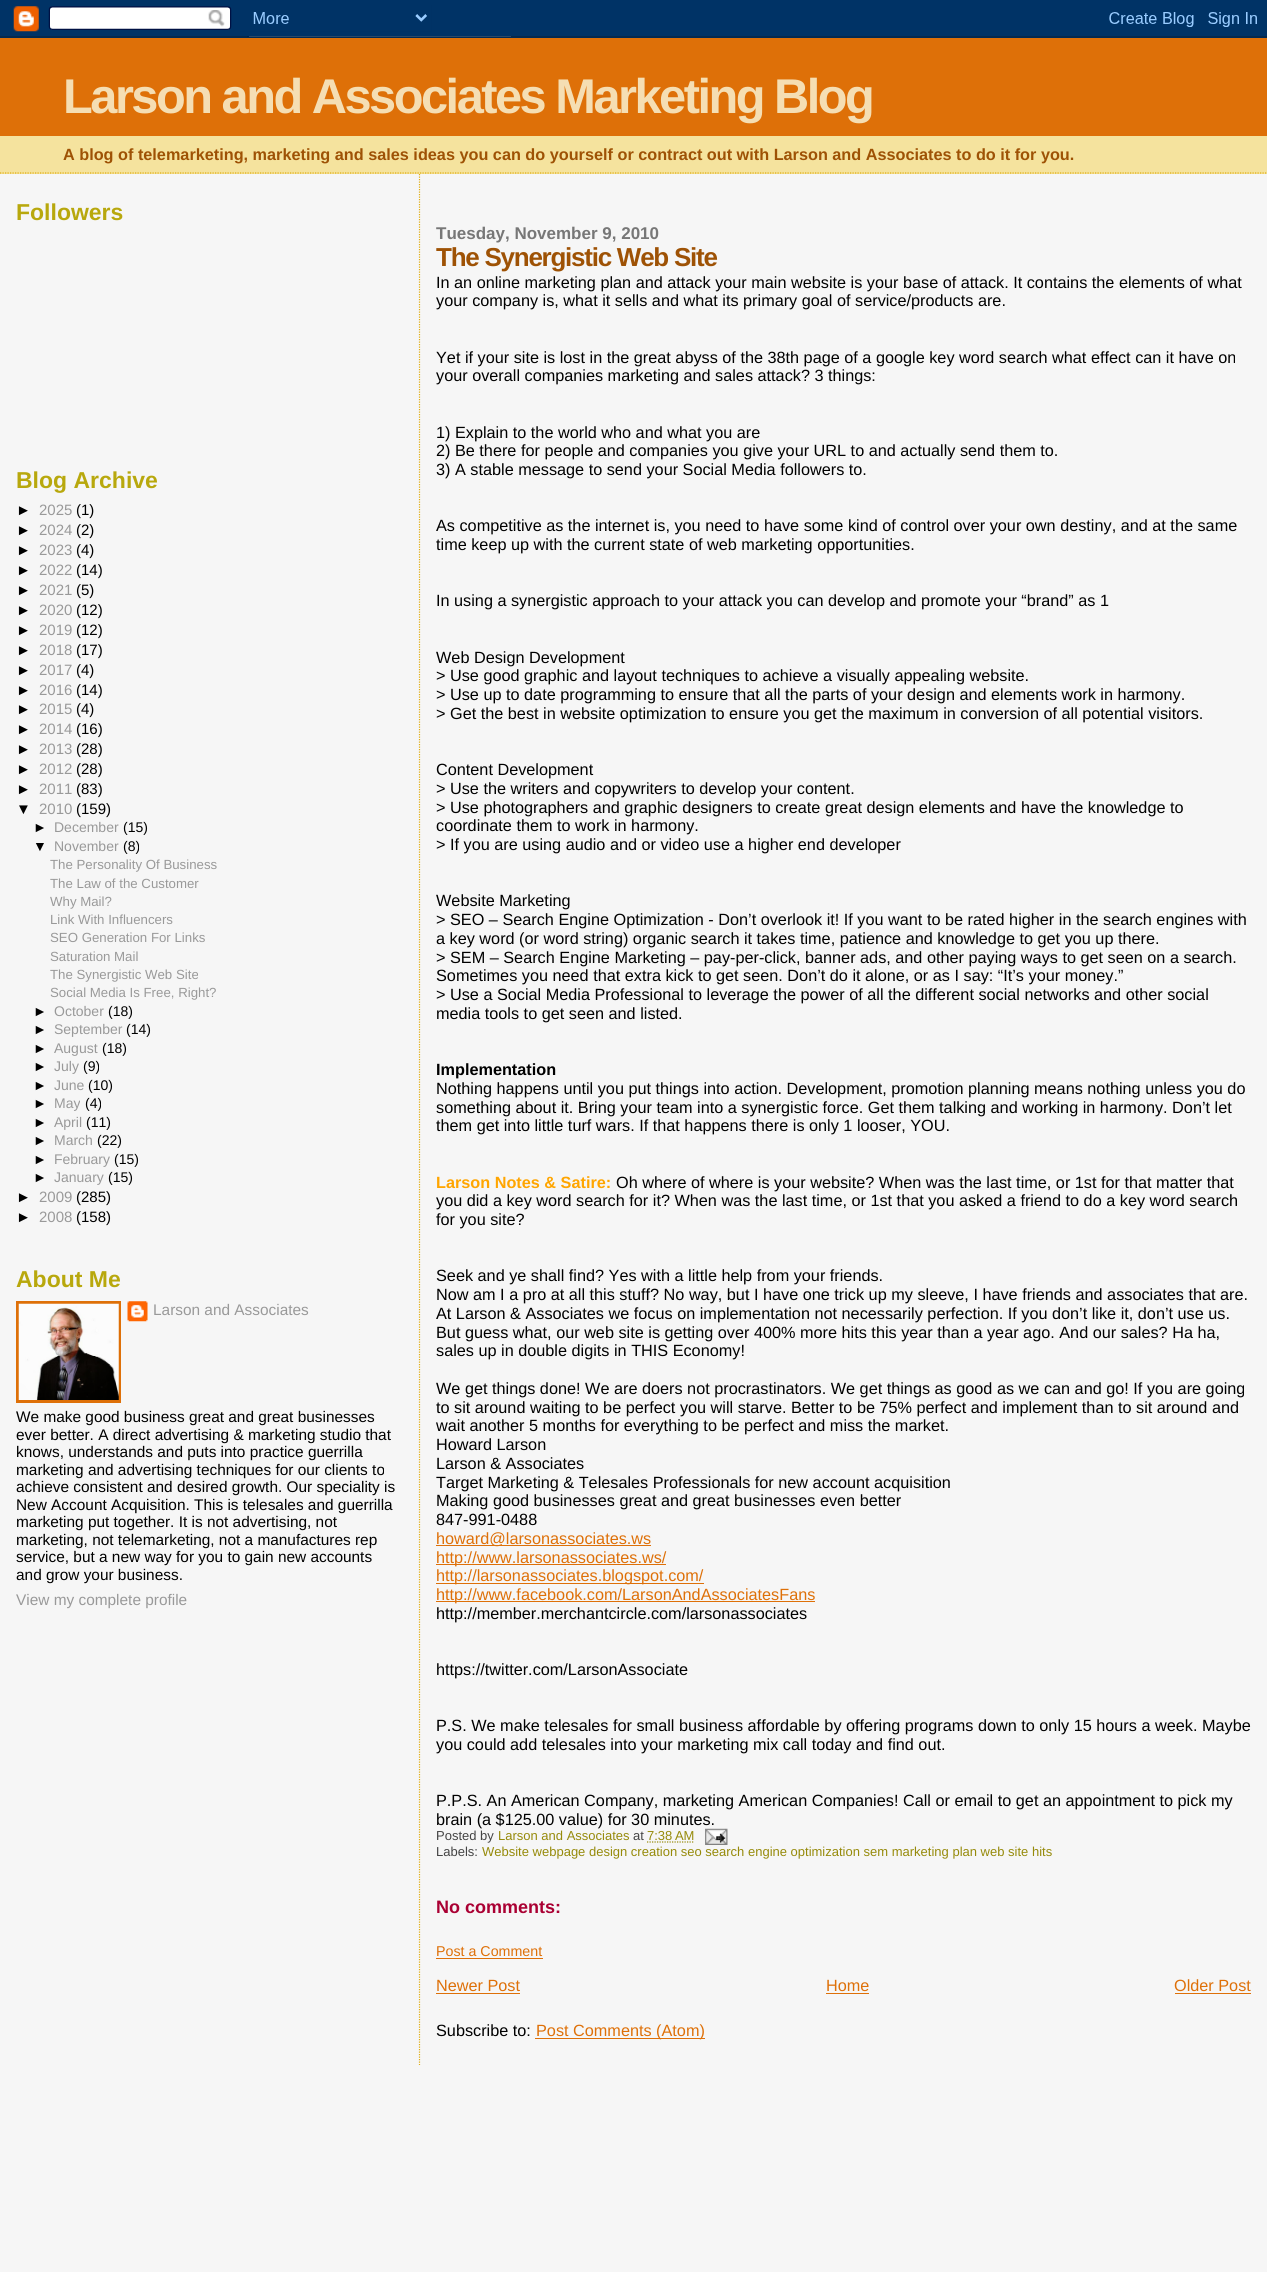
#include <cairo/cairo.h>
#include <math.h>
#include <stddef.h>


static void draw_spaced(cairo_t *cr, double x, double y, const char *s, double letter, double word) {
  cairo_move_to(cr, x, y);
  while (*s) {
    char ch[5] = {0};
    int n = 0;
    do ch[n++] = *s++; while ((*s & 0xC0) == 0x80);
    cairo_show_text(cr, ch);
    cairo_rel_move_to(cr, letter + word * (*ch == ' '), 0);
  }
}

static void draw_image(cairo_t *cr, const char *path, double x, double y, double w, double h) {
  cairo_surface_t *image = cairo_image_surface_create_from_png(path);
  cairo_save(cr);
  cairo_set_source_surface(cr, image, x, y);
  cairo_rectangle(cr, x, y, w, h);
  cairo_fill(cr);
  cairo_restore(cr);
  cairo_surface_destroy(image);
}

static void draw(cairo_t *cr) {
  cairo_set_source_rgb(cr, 246 / 255.0, 246 / 255.0, 246 / 255.0);
  cairo_paint(cr);
  draw_image(cr, "images/1.png", 0, 0, 1267, 38);
  cairo_set_source_rgb(cr, 245 / 255.0, 227 / 255.0, 158 / 255.0);
  cairo_rectangle(cr, 0, 136, 1267, 38);
  cairo_fill(cr);
  cairo_new_path(cr);
  cairo_move_to(cr, 0, 173);
  cairo_line_to(cr, 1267.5, 173);
  cairo_set_source_rgb(cr, 224 / 255.0, 173 / 255.0, 18 / 255.0);
  cairo_set_line_width(cr, 1.2);
  cairo_set_dash(cr, (double[]){1.25, 1.25}, 2, 0);
  cairo_stroke(cr);
  cairo_set_source_rgb(cr, 222 / 255.0, 112 / 255.0, 8 / 255.0);
  cairo_rectangle(cr, 0, 38, 1267, 98);
  cairo_fill(cr);
  cairo_rectangle(cr, 17.5, 1302.5, 102, 99);
  cairo_set_line_width(cr, 3);
  cairo_set_dash(cr, NULL, 0, 0);
  cairo_stroke(cr);
  draw_image(cr, "images/2.png", 18, 1303, 101, 97);
  draw_image(cr, "images/3.png", 127, 1301, 21, 21);
  cairo_new_path(cr);
  cairo_move_to(cr, 419.5, 174);
  cairo_line_to(cr, 419.5, 2065);
  cairo_set_source_rgb(cr, 224 / 255.0, 173 / 255.0, 18 / 255.0);
  cairo_set_line_width(cr, 1.2);
  cairo_set_dash(cr, (double[]){1.25, 1.25}, 2, 0);
  cairo_stroke(cr);
  cairo_set_source_rgb(cr, 222 / 255.0, 112 / 255.0, 8 / 255.0);
  cairo_rectangle(cr, 436, 1545, 215, 1);
  cairo_fill(cr);
  cairo_rectangle(cr, 436, 1564, 230, 1);
  cairo_fill(cr);
  cairo_rectangle(cr, 436, 1583, 268, 1);
  cairo_fill(cr);
  cairo_rectangle(cr, 436, 1601, 379, 1);
  cairo_fill(cr);
  cairo_new_path(cr);
  cairo_move_to(cr, 647, 1842);
  cairo_line_to(cr, 694.5, 1842);
  cairo_set_source_rgb(cr, 150 / 255.0, 138 / 255.0, 10 / 255.0);
  cairo_stroke(cr);
  cairo_set_source_rgb(cr, 222 / 255.0, 112 / 255.0, 8 / 255.0);
  cairo_rectangle(cr, 436, 1958, 107, 1);
  cairo_fill(cr);
  cairo_rectangle(cr, 436, 1993, 84, 1);
  cairo_fill(cr);
  cairo_rectangle(cr, 826, 1993, 43, 1);
  cairo_fill(cr);
  cairo_rectangle(cr, 1175, 1993, 76, 1);
  cairo_fill(cr);
  cairo_rectangle(cr, 535, 2038, 170, 1);
  cairo_fill(cr);
  cairo_select_font_face(cr, "Liberation Sans", CAIRO_FONT_SLANT_NORMAL, CAIRO_FONT_WEIGHT_BOLD);
  cairo_set_font_size(cr, 48.75);
  cairo_set_source_rgb(cr, 245 / 255.0, 222 / 255.0, 179 / 255.0);
  draw_spaced(cr, 63, 113, "Larson and Associates Marketing Blog", -2.5, 0);
  cairo_set_font_size(cr, 16.25);
  cairo_set_source_rgb(cr, 158 / 255.0, 82 / 255.0, 5 / 255.0);
  cairo_move_to(cr, 63, 160);
  cairo_show_text(cr, "A blog of telemarketing, marketing and sales ideas you can do yourself or contract out with Larson and Associates to do it for you.");
  cairo_set_font_size(cr, 23);
  cairo_set_source_rgb(cr, 184 / 255.0, 168 / 255.0, 13 / 255.0);
  cairo_move_to(cr, 16, 220);
  cairo_show_text(cr, "Followers");
  cairo_move_to(cr, 16, 488);
  cairo_show_text(cr, "Blog Archive");
  cairo_select_font_face(cr, "Liberation Sans", CAIRO_FONT_SLANT_NORMAL, CAIRO_FONT_WEIGHT_NORMAL);
  cairo_set_font_size(cr, 15);
  cairo_set_source_rgb(cr, 0, 0, 0);
  cairo_move_to(cr, 16, 515);
  cairo_show_text(cr, "►");
  cairo_set_source_rgb(cr, 153 / 255.0, 153 / 255.0, 153 / 255.0);
  cairo_move_to(cr, 39, 515);
  cairo_show_text(cr, "2025");
  cairo_set_source_rgb(cr, 0, 0, 0);
  cairo_move_to(cr, 76, 515);
  cairo_show_text(cr, "(1)");
  cairo_move_to(cr, 16, 535);
  cairo_show_text(cr, "►");
  cairo_set_source_rgb(cr, 153 / 255.0, 153 / 255.0, 153 / 255.0);
  cairo_move_to(cr, 39, 535);
  cairo_show_text(cr, "2024");
  cairo_set_source_rgb(cr, 0, 0, 0);
  cairo_move_to(cr, 76, 535);
  cairo_show_text(cr, "(2)");
  cairo_move_to(cr, 16, 555);
  cairo_show_text(cr, "►");
  cairo_set_source_rgb(cr, 153 / 255.0, 153 / 255.0, 153 / 255.0);
  cairo_move_to(cr, 39, 555);
  cairo_show_text(cr, "2023");
  cairo_set_source_rgb(cr, 0, 0, 0);
  cairo_move_to(cr, 76, 555);
  cairo_show_text(cr, "(4)");
  cairo_move_to(cr, 16, 575);
  cairo_show_text(cr, "►");
  cairo_set_source_rgb(cr, 153 / 255.0, 153 / 255.0, 153 / 255.0);
  cairo_move_to(cr, 39, 575);
  cairo_show_text(cr, "2022");
  cairo_set_source_rgb(cr, 0, 0, 0);
  cairo_move_to(cr, 76, 575);
  cairo_show_text(cr, "(14)");
  cairo_move_to(cr, 16, 595);
  cairo_show_text(cr, "►");
  cairo_set_source_rgb(cr, 153 / 255.0, 153 / 255.0, 153 / 255.0);
  cairo_move_to(cr, 39, 595);
  cairo_show_text(cr, "2021");
  cairo_set_source_rgb(cr, 0, 0, 0);
  cairo_move_to(cr, 76, 595);
  cairo_show_text(cr, "(5)");
  cairo_move_to(cr, 16, 615);
  cairo_show_text(cr, "►");
  cairo_set_source_rgb(cr, 153 / 255.0, 153 / 255.0, 153 / 255.0);
  cairo_move_to(cr, 39, 615);
  cairo_show_text(cr, "2020");
  cairo_set_source_rgb(cr, 0, 0, 0);
  cairo_move_to(cr, 76, 615);
  cairo_show_text(cr, "(12)");
  cairo_move_to(cr, 16, 635);
  cairo_show_text(cr, "►");
  cairo_set_source_rgb(cr, 153 / 255.0, 153 / 255.0, 153 / 255.0);
  cairo_move_to(cr, 39, 635);
  cairo_show_text(cr, "2019");
  cairo_set_source_rgb(cr, 0, 0, 0);
  cairo_move_to(cr, 76, 635);
  cairo_show_text(cr, "(12)");
  cairo_move_to(cr, 16, 655);
  cairo_show_text(cr, "►");
  cairo_set_source_rgb(cr, 153 / 255.0, 153 / 255.0, 153 / 255.0);
  cairo_move_to(cr, 39, 655);
  cairo_show_text(cr, "2018");
  cairo_set_source_rgb(cr, 0, 0, 0);
  cairo_move_to(cr, 76, 655);
  cairo_show_text(cr, "(17)");
  cairo_move_to(cr, 16, 675);
  cairo_show_text(cr, "►");
  cairo_set_source_rgb(cr, 153 / 255.0, 153 / 255.0, 153 / 255.0);
  cairo_move_to(cr, 39, 675);
  cairo_show_text(cr, "2017");
  cairo_set_source_rgb(cr, 0, 0, 0);
  cairo_move_to(cr, 76, 675);
  cairo_show_text(cr, "(4)");
  cairo_move_to(cr, 16, 695);
  cairo_show_text(cr, "►");
  cairo_set_source_rgb(cr, 153 / 255.0, 153 / 255.0, 153 / 255.0);
  cairo_move_to(cr, 39, 695);
  cairo_show_text(cr, "2016");
  cairo_set_source_rgb(cr, 0, 0, 0);
  cairo_move_to(cr, 76, 695);
  cairo_show_text(cr, "(14)");
  cairo_move_to(cr, 16, 714);
  cairo_show_text(cr, "►");
  cairo_set_source_rgb(cr, 153 / 255.0, 153 / 255.0, 153 / 255.0);
  cairo_move_to(cr, 39, 714);
  cairo_show_text(cr, "2015");
  cairo_set_source_rgb(cr, 0, 0, 0);
  cairo_move_to(cr, 76, 714);
  cairo_show_text(cr, "(4)");
  cairo_move_to(cr, 16, 734);
  cairo_show_text(cr, "►");
  cairo_set_source_rgb(cr, 153 / 255.0, 153 / 255.0, 153 / 255.0);
  cairo_move_to(cr, 39, 734);
  cairo_show_text(cr, "2014");
  cairo_set_source_rgb(cr, 0, 0, 0);
  cairo_move_to(cr, 76, 734);
  cairo_show_text(cr, "(16)");
  cairo_move_to(cr, 16, 754);
  cairo_show_text(cr, "►");
  cairo_set_source_rgb(cr, 153 / 255.0, 153 / 255.0, 153 / 255.0);
  cairo_move_to(cr, 39, 754);
  cairo_show_text(cr, "2013");
  cairo_set_source_rgb(cr, 0, 0, 0);
  cairo_move_to(cr, 76, 754);
  cairo_show_text(cr, "(28)");
  cairo_move_to(cr, 16, 774);
  cairo_show_text(cr, "►");
  cairo_set_source_rgb(cr, 153 / 255.0, 153 / 255.0, 153 / 255.0);
  cairo_move_to(cr, 39, 774);
  cairo_show_text(cr, "2012");
  cairo_set_source_rgb(cr, 0, 0, 0);
  cairo_move_to(cr, 76, 774);
  cairo_show_text(cr, "(28)");
  cairo_move_to(cr, 16, 794);
  cairo_show_text(cr, "►");
  cairo_set_source_rgb(cr, 153 / 255.0, 153 / 255.0, 153 / 255.0);
  cairo_move_to(cr, 39, 794);
  cairo_show_text(cr, "2011");
  cairo_set_source_rgb(cr, 0, 0, 0);
  cairo_move_to(cr, 76, 794);
  cairo_show_text(cr, "(83)");
  cairo_move_to(cr, 16, 814);
  cairo_show_text(cr, "▼");
  cairo_set_source_rgb(cr, 153 / 255.0, 153 / 255.0, 153 / 255.0);
  cairo_move_to(cr, 39, 814);
  cairo_show_text(cr, "2010");
  cairo_set_source_rgb(cr, 0, 0, 0);
  cairo_move_to(cr, 76, 814);
  cairo_show_text(cr, "(159)");
  cairo_set_font_size(cr, 14);
  cairo_move_to(cr, 33, 832);
  cairo_show_text(cr, "►");
  cairo_set_source_rgb(cr, 153 / 255.0, 153 / 255.0, 153 / 255.0);
  cairo_move_to(cr, 54, 832);
  cairo_show_text(cr, "December");
  cairo_set_source_rgb(cr, 0, 0, 0);
  cairo_move_to(cr, 123, 832);
  cairo_show_text(cr, "(15)");
  cairo_move_to(cr, 33, 851);
  cairo_show_text(cr, "▼");
  cairo_set_source_rgb(cr, 153 / 255.0, 153 / 255.0, 153 / 255.0);
  cairo_move_to(cr, 54, 851);
  cairo_show_text(cr, "November");
  cairo_set_source_rgb(cr, 0, 0, 0);
  cairo_move_to(cr, 123, 851);
  cairo_show_text(cr, "(8)");
  cairo_set_font_size(cr, 13.25);
  cairo_set_source_rgb(cr, 153 / 255.0, 153 / 255.0, 153 / 255.0);
  cairo_move_to(cr, 50, 869);
  cairo_show_text(cr, "The Personality Of Business");
  cairo_move_to(cr, 50, 888);
  cairo_show_text(cr, "The Law of the Customer");
  cairo_move_to(cr, 50, 906);
  cairo_show_text(cr, "Why Mail?");
  cairo_move_to(cr, 50, 924);
  cairo_show_text(cr, "Link With Influencers");
  cairo_move_to(cr, 50, 942);
  cairo_show_text(cr, "SEO Generation For Links");
  cairo_move_to(cr, 50, 961);
  cairo_show_text(cr, "Saturation Mail");
  cairo_move_to(cr, 50, 979);
  cairo_show_text(cr, "The Synergistic Web Site");
  cairo_move_to(cr, 50, 997);
  cairo_show_text(cr, "Social Media Is Free, Right?");
  cairo_set_font_size(cr, 14);
  cairo_set_source_rgb(cr, 0, 0, 0);
  cairo_move_to(cr, 33, 1016);
  cairo_show_text(cr, "►");
  cairo_set_source_rgb(cr, 153 / 255.0, 153 / 255.0, 153 / 255.0);
  cairo_move_to(cr, 54, 1016);
  cairo_show_text(cr, "October");
  cairo_set_source_rgb(cr, 0, 0, 0);
  cairo_move_to(cr, 108, 1016);
  cairo_show_text(cr, "(18)");
  cairo_move_to(cr, 33, 1034);
  cairo_show_text(cr, "►");
  cairo_set_source_rgb(cr, 153 / 255.0, 153 / 255.0, 153 / 255.0);
  cairo_move_to(cr, 54, 1034);
  cairo_show_text(cr, "September");
  cairo_set_source_rgb(cr, 0, 0, 0);
  cairo_move_to(cr, 126, 1034);
  cairo_show_text(cr, "(14)");
  cairo_move_to(cr, 33, 1053);
  cairo_show_text(cr, "►");
  cairo_set_source_rgb(cr, 153 / 255.0, 153 / 255.0, 153 / 255.0);
  cairo_move_to(cr, 54, 1053);
  cairo_show_text(cr, "August");
  cairo_set_source_rgb(cr, 0, 0, 0);
  cairo_move_to(cr, 102, 1053);
  cairo_show_text(cr, "(18)");
  cairo_move_to(cr, 33, 1071);
  cairo_show_text(cr, "►");
  cairo_set_source_rgb(cr, 153 / 255.0, 153 / 255.0, 153 / 255.0);
  cairo_move_to(cr, 54, 1071);
  cairo_show_text(cr, "July");
  cairo_set_source_rgb(cr, 0, 0, 0);
  cairo_move_to(cr, 83, 1071);
  cairo_show_text(cr, "(9)");
  cairo_move_to(cr, 33, 1090);
  cairo_show_text(cr, "►");
  cairo_set_source_rgb(cr, 153 / 255.0, 153 / 255.0, 153 / 255.0);
  cairo_move_to(cr, 54, 1090);
  cairo_show_text(cr, "June");
  cairo_set_source_rgb(cr, 0, 0, 0);
  cairo_move_to(cr, 88, 1090);
  cairo_show_text(cr, "(10)");
  cairo_move_to(cr, 33, 1108);
  cairo_show_text(cr, "►");
  cairo_set_source_rgb(cr, 153 / 255.0, 153 / 255.0, 153 / 255.0);
  cairo_move_to(cr, 54, 1108);
  cairo_show_text(cr, "May");
  cairo_set_source_rgb(cr, 0, 0, 0);
  cairo_move_to(cr, 85, 1108);
  cairo_show_text(cr, "(4)");
  cairo_move_to(cr, 33, 1127);
  cairo_show_text(cr, "►");
  cairo_set_source_rgb(cr, 153 / 255.0, 153 / 255.0, 153 / 255.0);
  cairo_move_to(cr, 54, 1127);
  cairo_show_text(cr, "April");
  cairo_set_source_rgb(cr, 0, 0, 0);
  cairo_move_to(cr, 86, 1127);
  cairo_show_text(cr, "(11)");
  cairo_move_to(cr, 33, 1145);
  cairo_show_text(cr, "►");
  cairo_set_source_rgb(cr, 153 / 255.0, 153 / 255.0, 153 / 255.0);
  cairo_move_to(cr, 54, 1145);
  cairo_show_text(cr, "March");
  cairo_set_source_rgb(cr, 0, 0, 0);
  cairo_move_to(cr, 97, 1145);
  cairo_show_text(cr, "(22)");
  cairo_move_to(cr, 33, 1164);
  cairo_show_text(cr, "►");
  cairo_set_source_rgb(cr, 153 / 255.0, 153 / 255.0, 153 / 255.0);
  cairo_move_to(cr, 54, 1164);
  cairo_show_text(cr, "February");
  cairo_set_source_rgb(cr, 0, 0, 0);
  cairo_move_to(cr, 114, 1164);
  cairo_show_text(cr, "(15)");
  cairo_move_to(cr, 33, 1182);
  cairo_show_text(cr, "►");
  cairo_set_source_rgb(cr, 153 / 255.0, 153 / 255.0, 153 / 255.0);
  cairo_move_to(cr, 54, 1182);
  cairo_show_text(cr, "January");
  cairo_set_source_rgb(cr, 0, 0, 0);
  cairo_move_to(cr, 108, 1182);
  cairo_show_text(cr, "(15)");
  cairo_set_font_size(cr, 15);
  cairo_move_to(cr, 16, 1202);
  cairo_show_text(cr, "►");
  cairo_set_source_rgb(cr, 153 / 255.0, 153 / 255.0, 153 / 255.0);
  cairo_move_to(cr, 39, 1202);
  cairo_show_text(cr, "2009");
  cairo_set_source_rgb(cr, 0, 0, 0);
  cairo_move_to(cr, 76, 1202);
  cairo_show_text(cr, "(285)");
  cairo_move_to(cr, 16, 1222);
  cairo_show_text(cr, "►");
  cairo_set_source_rgb(cr, 153 / 255.0, 153 / 255.0, 153 / 255.0);
  cairo_move_to(cr, 39, 1222);
  cairo_show_text(cr, "2008");
  cairo_set_source_rgb(cr, 0, 0, 0);
  cairo_move_to(cr, 76, 1222);
  cairo_show_text(cr, "(158)");
  cairo_select_font_face(cr, "Liberation Sans", CAIRO_FONT_SLANT_NORMAL, CAIRO_FONT_WEIGHT_BOLD);
  cairo_set_font_size(cr, 23);
  cairo_set_source_rgb(cr, 184 / 255.0, 168 / 255.0, 13 / 255.0);
  cairo_move_to(cr, 16, 1287);
  cairo_show_text(cr, "About Me");
  cairo_select_font_face(cr, "Liberation Sans", CAIRO_FONT_SLANT_NORMAL, CAIRO_FONT_WEIGHT_NORMAL);
  cairo_set_font_size(cr, 15.4);
  cairo_set_source_rgb(cr, 153 / 255.0, 153 / 255.0, 153 / 255.0);
  cairo_move_to(cr, 153, 1315);
  cairo_show_text(cr, "Larson and Associates");
  cairo_set_source_rgb(cr, 0, 0, 0);
  cairo_move_to(cr, 16, 1422);
  cairo_show_text(cr, "We make good business great and great businesses");
  cairo_move_to(cr, 16, 1440);
  cairo_show_text(cr, "ever better. A direct advertising & marketing studio that");
  cairo_move_to(cr, 16, 1457);
  cairo_show_text(cr, "knows, understands and puts into practice guerrilla");
  cairo_move_to(cr, 16, 1475);
  cairo_show_text(cr, "marketing and advertising techniques for our clients to");
  cairo_move_to(cr, 16, 1492);
  cairo_show_text(cr, "achieve consistent and desired growth. Our speciality is");
  cairo_move_to(cr, 16, 1510);
  cairo_show_text(cr, "New Account Acquisition. This is telesales and guerrilla");
  cairo_move_to(cr, 16, 1527);
  cairo_show_text(cr, "marketing put together. It is not advertising, not");
  cairo_move_to(cr, 16, 1545);
  cairo_show_text(cr, "marketing, not telemarketing, not a manufactures rep");
  cairo_move_to(cr, 16, 1562);
  cairo_show_text(cr, "service, but a new way for you to gain new accounts");
  cairo_move_to(cr, 16, 1580);
  cairo_show_text(cr, "and grow your business.");
  cairo_set_source_rgb(cr, 153 / 255.0, 153 / 255.0, 153 / 255.0);
  cairo_move_to(cr, 16, 1605);
  cairo_show_text(cr, "View my complete profile");
  cairo_select_font_face(cr, "Liberation Sans", CAIRO_FONT_SLANT_NORMAL, CAIRO_FONT_WEIGHT_BOLD);
  cairo_set_font_size(cr, 17);
  cairo_set_source_rgb(cr, 119 / 255.0, 119 / 255.0, 119 / 255.0);
  cairo_move_to(cr, 436, 239);
  cairo_show_text(cr, "Tuesday, November 9, 2010");
  cairo_set_font_size(cr, 26);
  cairo_set_source_rgb(cr, 158 / 255.0, 82 / 255.0, 5 / 255.0);
  draw_spaced(cr, 436, 266, "The Synergistic Web Site", -1.25, 0);
  cairo_select_font_face(cr, "Liberation Sans", CAIRO_FONT_SLANT_NORMAL, CAIRO_FONT_WEIGHT_NORMAL);
  cairo_set_font_size(cr, 16.25);
  cairo_set_source_rgb(cr, 0, 0, 0);
  cairo_move_to(cr, 436, 288);
  cairo_show_text(cr, "In an online marketing plan and attack your main website is your base of attack. It contains the elements of what");
  cairo_move_to(cr, 436, 306);
  cairo_show_text(cr, "your company is, what it sells and what its primary goal of service/products are.");
  cairo_move_to(cr, 436, 363);
  cairo_show_text(cr, "Yet if your site is lost in the great abyss of the 38th page of a google key word search what effect can it have on");
  cairo_move_to(cr, 436, 381);
  cairo_show_text(cr, "your overall companies marketing and sales attack? 3 things:");
  cairo_move_to(cr, 436, 438);
  cairo_show_text(cr, "1) Explain to the world who and what you are");
  cairo_move_to(cr, 436, 456);
  cairo_show_text(cr, "2) Be there for people and companies you give your URL to and actually send them to.");
  cairo_move_to(cr, 436, 475);
  cairo_show_text(cr, "3) A stable message to send your Social Media followers to.");
  cairo_move_to(cr, 436, 531);
  cairo_show_text(cr, "As competitive as the internet is, you need to have some kind of control over your own destiny, and at the same");
  cairo_move_to(cr, 436, 550);
  cairo_show_text(cr, "time keep up with the current state of web marketing opportunities.");
  cairo_move_to(cr, 436, 606);
  cairo_show_text(cr, "In using a synergistic approach to your attack you can develop and promote your “brand” as 1");
  cairo_move_to(cr, 436, 663);
  cairo_show_text(cr, "Web Design Development");
  cairo_move_to(cr, 436, 681);
  cairo_show_text(cr, "> Use good graphic and layout techniques to achieve a visually appealing website.");
  cairo_move_to(cr, 436, 700);
  cairo_show_text(cr, "> Use up to date programming to ensure that all the parts of your design and elements work in harmony.");
  cairo_move_to(cr, 436, 719);
  cairo_show_text(cr, "> Get the best in website optimization to ensure you get the maximum in conversion of all potential visitors.");
  cairo_move_to(cr, 436, 775);
  cairo_show_text(cr, "Content Development");
  cairo_move_to(cr, 436, 794);
  cairo_show_text(cr, "> Use the writers and copywriters to develop your content.");
  cairo_move_to(cr, 436, 813);
  cairo_show_text(cr, "> Use photographers and graphic designers to create great design elements and have the knowledge to");
  cairo_move_to(cr, 436, 831);
  cairo_show_text(cr, "coordinate them to work in harmony.");
  cairo_move_to(cr, 436, 850);
  cairo_show_text(cr, "> If you are using audio and or video use a higher end developer");
  cairo_move_to(cr, 436, 906);
  cairo_show_text(cr, "Website Marketing");
  cairo_move_to(cr, 436, 925);
  cairo_show_text(cr, "> SEO – Search Engine Optimization - Don’t overlook it! If you want to be rated higher in the search engines with");
  cairo_move_to(cr, 436, 944);
  cairo_show_text(cr, "a key word (or word string) organic search it takes time, patience and knowledge to get you up there.");
  cairo_move_to(cr, 436, 963);
  cairo_show_text(cr, "> SEM – Search Engine Marketing – pay-per-click, banner ads, and other paying ways to get seen on a search.");
  cairo_move_to(cr, 436, 981);
  cairo_show_text(cr, "Sometimes you need that extra kick to get seen. Don’t do it alone, or as I say: “It’s your money.”");
  cairo_move_to(cr, 436, 1000);
  cairo_show_text(cr, "> Use a Social Media Professional to leverage the power of all the different social networks and other social");
  cairo_move_to(cr, 436, 1019);
  cairo_show_text(cr, "media tools to get seen and listed.");
  cairo_select_font_face(cr, "Liberation Sans", CAIRO_FONT_SLANT_NORMAL, CAIRO_FONT_WEIGHT_BOLD);
  cairo_move_to(cr, 436, 1075);
  cairo_show_text(cr, "Implementation");
  cairo_select_font_face(cr, "Liberation Sans", CAIRO_FONT_SLANT_NORMAL, CAIRO_FONT_WEIGHT_NORMAL);
  cairo_move_to(cr, 436, 1094);
  cairo_show_text(cr, "Nothing happens until you put things into action. Development, promotion planning means nothing unless you do");
  cairo_move_to(cr, 436, 1113);
  cairo_show_text(cr, "something about it. Bring your team into a synergistic force. Get them talking and working in harmony. Don’t let");
  cairo_move_to(cr, 436, 1131);
  cairo_show_text(cr, "them get into little turf wars. If that happens there is only 1 looser, YOU.");
  cairo_select_font_face(cr, "Liberation Sans", CAIRO_FONT_SLANT_NORMAL, CAIRO_FONT_WEIGHT_BOLD);
  cairo_set_source_rgb(cr, 1, 165 / 255.0, 0);
  cairo_move_to(cr, 436, 1188);
  cairo_show_text(cr, "Larson Notes & Satire:");
  cairo_select_font_face(cr, "Liberation Sans", CAIRO_FONT_SLANT_NORMAL, CAIRO_FONT_WEIGHT_NORMAL);
  cairo_set_source_rgb(cr, 0, 0, 0);
  cairo_move_to(cr, 616, 1188);
  cairo_show_text(cr, "Oh where of where is your website? When was the last time, or 1st for that matter that");
  cairo_move_to(cr, 436, 1206);
  cairo_show_text(cr, "you did a key word search for it? When was the last time, or 1st that you asked a friend to do a key word search");
  cairo_move_to(cr, 436, 1225);
  cairo_show_text(cr, "for you site?");
  cairo_move_to(cr, 436, 1281);
  cairo_show_text(cr, "Seek and ye shall find? Yes with a little help from your friends.");
  cairo_move_to(cr, 436, 1300);
  cairo_show_text(cr, "Now am I a pro at all this stuff? No way, but I have one trick up my sleeve, I have friends and associates that are.");
  cairo_move_to(cr, 436, 1319);
  cairo_show_text(cr, "At Larson & Associates we focus on implementation not necessarily perfection. If you don’t like it, don’t use us.");
  cairo_move_to(cr, 436, 1338);
  cairo_show_text(cr, "But guess what, our web site is getting over 400% more hits this year than a year ago. And our sales? Ha ha,");
  cairo_move_to(cr, 436, 1356);
  cairo_show_text(cr, "sales up in double digits in THIS Economy!");
  cairo_move_to(cr, 436, 1394);
  cairo_show_text(cr, "We get things done! We are doers not procrastinators. We get things as good as we can and go! If you are going");
  cairo_move_to(cr, 436, 1413);
  cairo_show_text(cr, "to sit around waiting to be perfect you will starve. Better to be 75% perfect and implement than to sit around and");
  cairo_move_to(cr, 436, 1431);
  cairo_show_text(cr, "wait another 5 months for everything to be perfect and miss the market.");
  cairo_move_to(cr, 436, 1450);
  cairo_show_text(cr, "Howard Larson");
  cairo_move_to(cr, 436, 1469);
  cairo_show_text(cr, "Larson & Associates");
  cairo_move_to(cr, 436, 1488);
  cairo_show_text(cr, "Target Marketing & Telesales Professionals for new account acquisition");
  cairo_move_to(cr, 436, 1506);
  cairo_show_text(cr, "Making good businesses great and great businesses even better");
  cairo_move_to(cr, 436, 1525);
  cairo_show_text(cr, "847-991-0488");
  cairo_set_source_rgb(cr, 222 / 255.0, 112 / 255.0, 8 / 255.0);
  cairo_move_to(cr, 436, 1544);
  cairo_show_text(cr, "howard@larsonassociates.ws");
  cairo_move_to(cr, 436, 1563);
  cairo_show_text(cr, "http://www.larsonassociates.ws/");
  cairo_move_to(cr, 436, 1581);
  cairo_show_text(cr, "http://larsonassociates.blogspot.com/");
  cairo_move_to(cr, 436, 1600);
  cairo_show_text(cr, "http://www.facebook.com/LarsonAndAssociatesFans");
  cairo_set_source_rgb(cr, 0, 0, 0);
  cairo_move_to(cr, 436, 1619);
  cairo_show_text(cr, "http://member.merchantcircle.com/larsonassociates");
  cairo_move_to(cr, 436, 1675);
  cairo_show_text(cr, "https://twitter.com/LarsonAssociate");
  cairo_move_to(cr, 436, 1731);
  cairo_show_text(cr, "P.S. We make telesales for small business affordable by offering programs down to only 15 hours a week. Maybe");
  cairo_move_to(cr, 436, 1750);
  cairo_show_text(cr, "you could add telesales into your marketing mix call today and find out.");
  cairo_move_to(cr, 436, 1806);
  cairo_show_text(cr, "P.P.S. An American Company, marketing American Companies! Call or email to get an appointment to pick my");
  cairo_move_to(cr, 436, 1825);
  cairo_show_text(cr, "brain (a $125.00 value) for 30 minutes.");
  cairo_set_font_size(cr, 13);
  cairo_set_source_rgb(cr, 68 / 255.0, 68 / 255.0, 68 / 255.0);
  cairo_move_to(cr, 436, 1840);
  cairo_show_text(cr, "Posted by");
  cairo_set_source_rgb(cr, 150 / 255.0, 138 / 255.0, 10 / 255.0);
  cairo_move_to(cr, 498, 1840);
  cairo_show_text(cr, "Larson and Associates");
  cairo_set_source_rgb(cr, 68 / 255.0, 68 / 255.0, 68 / 255.0);
  cairo_move_to(cr, 633, 1840);
  cairo_show_text(cr, "at");
  cairo_set_source_rgb(cr, 150 / 255.0, 138 / 255.0, 10 / 255.0);
  cairo_move_to(cr, 647, 1840);
  cairo_show_text(cr, "7:38 AM");
  draw_image(cr, "images/4.png", 705, 1828, 23, 17);
  cairo_set_source_rgb(cr, 68 / 255.0, 68 / 255.0, 68 / 255.0);
  cairo_move_to(cr, 436, 1856);
  cairo_show_text(cr, "Labels:");
  cairo_set_source_rgb(cr, 150 / 255.0, 138 / 255.0, 10 / 255.0);
  cairo_move_to(cr, 482, 1856);
  cairo_show_text(cr, "Website webpage design creation seo search engine optimization sem marketing plan web site hits");
  cairo_select_font_face(cr, "Liberation Sans", CAIRO_FONT_SLANT_NORMAL, CAIRO_FONT_WEIGHT_BOLD);
  cairo_set_font_size(cr, 18);
  cairo_set_source_rgb(cr, 170 / 255.0, 0, 51 / 255.0);
  cairo_move_to(cr, 436, 1913);
  cairo_show_text(cr, "No comments:");
  cairo_select_font_face(cr, "Liberation Sans", CAIRO_FONT_SLANT_NORMAL, CAIRO_FONT_WEIGHT_NORMAL);
  cairo_set_font_size(cr, 14.25);
  cairo_set_source_rgb(cr, 222 / 255.0, 112 / 255.0, 8 / 255.0);
  cairo_move_to(cr, 436, 1956);
  cairo_show_text(cr, "Post a Comment");
  cairo_set_font_size(cr, 16.25);
  cairo_move_to(cr, 436, 1991);
  cairo_show_text(cr, "Newer Post");
  cairo_move_to(cr, 826, 1991);
  cairo_show_text(cr, "Home");
  cairo_move_to(cr, 1174, 1991);
  cairo_show_text(cr, "Older Post");
  cairo_set_source_rgb(cr, 0, 0, 0);
  cairo_move_to(cr, 436, 2036);
  cairo_show_text(cr, "Subscribe to:");
  cairo_set_source_rgb(cr, 222 / 255.0, 112 / 255.0, 8 / 255.0);
  cairo_move_to(cr, 536, 2036);
  cairo_show_text(cr, "Post Comments (Atom)");
}

int main(void) {
  cairo_surface_t *surface = cairo_image_surface_create(CAIRO_FORMAT_RGB24, 1267, 2272);
  cairo_t *cr = cairo_create(surface);
  cairo_font_options_t *options = cairo_font_options_create();
  cairo_font_options_set_hint_metrics(options, CAIRO_HINT_METRICS_OFF);
  cairo_font_options_set_hint_style(options, CAIRO_HINT_STYLE_NONE);
  cairo_set_font_options(cr, options);
  cairo_set_miter_limit(cr, 4);
  draw(cr);
  cairo_surface_write_to_png(surface, "out.png");
  cairo_font_options_destroy(options);
  cairo_destroy(cr);
  cairo_surface_destroy(surface);
  return 0;
}
